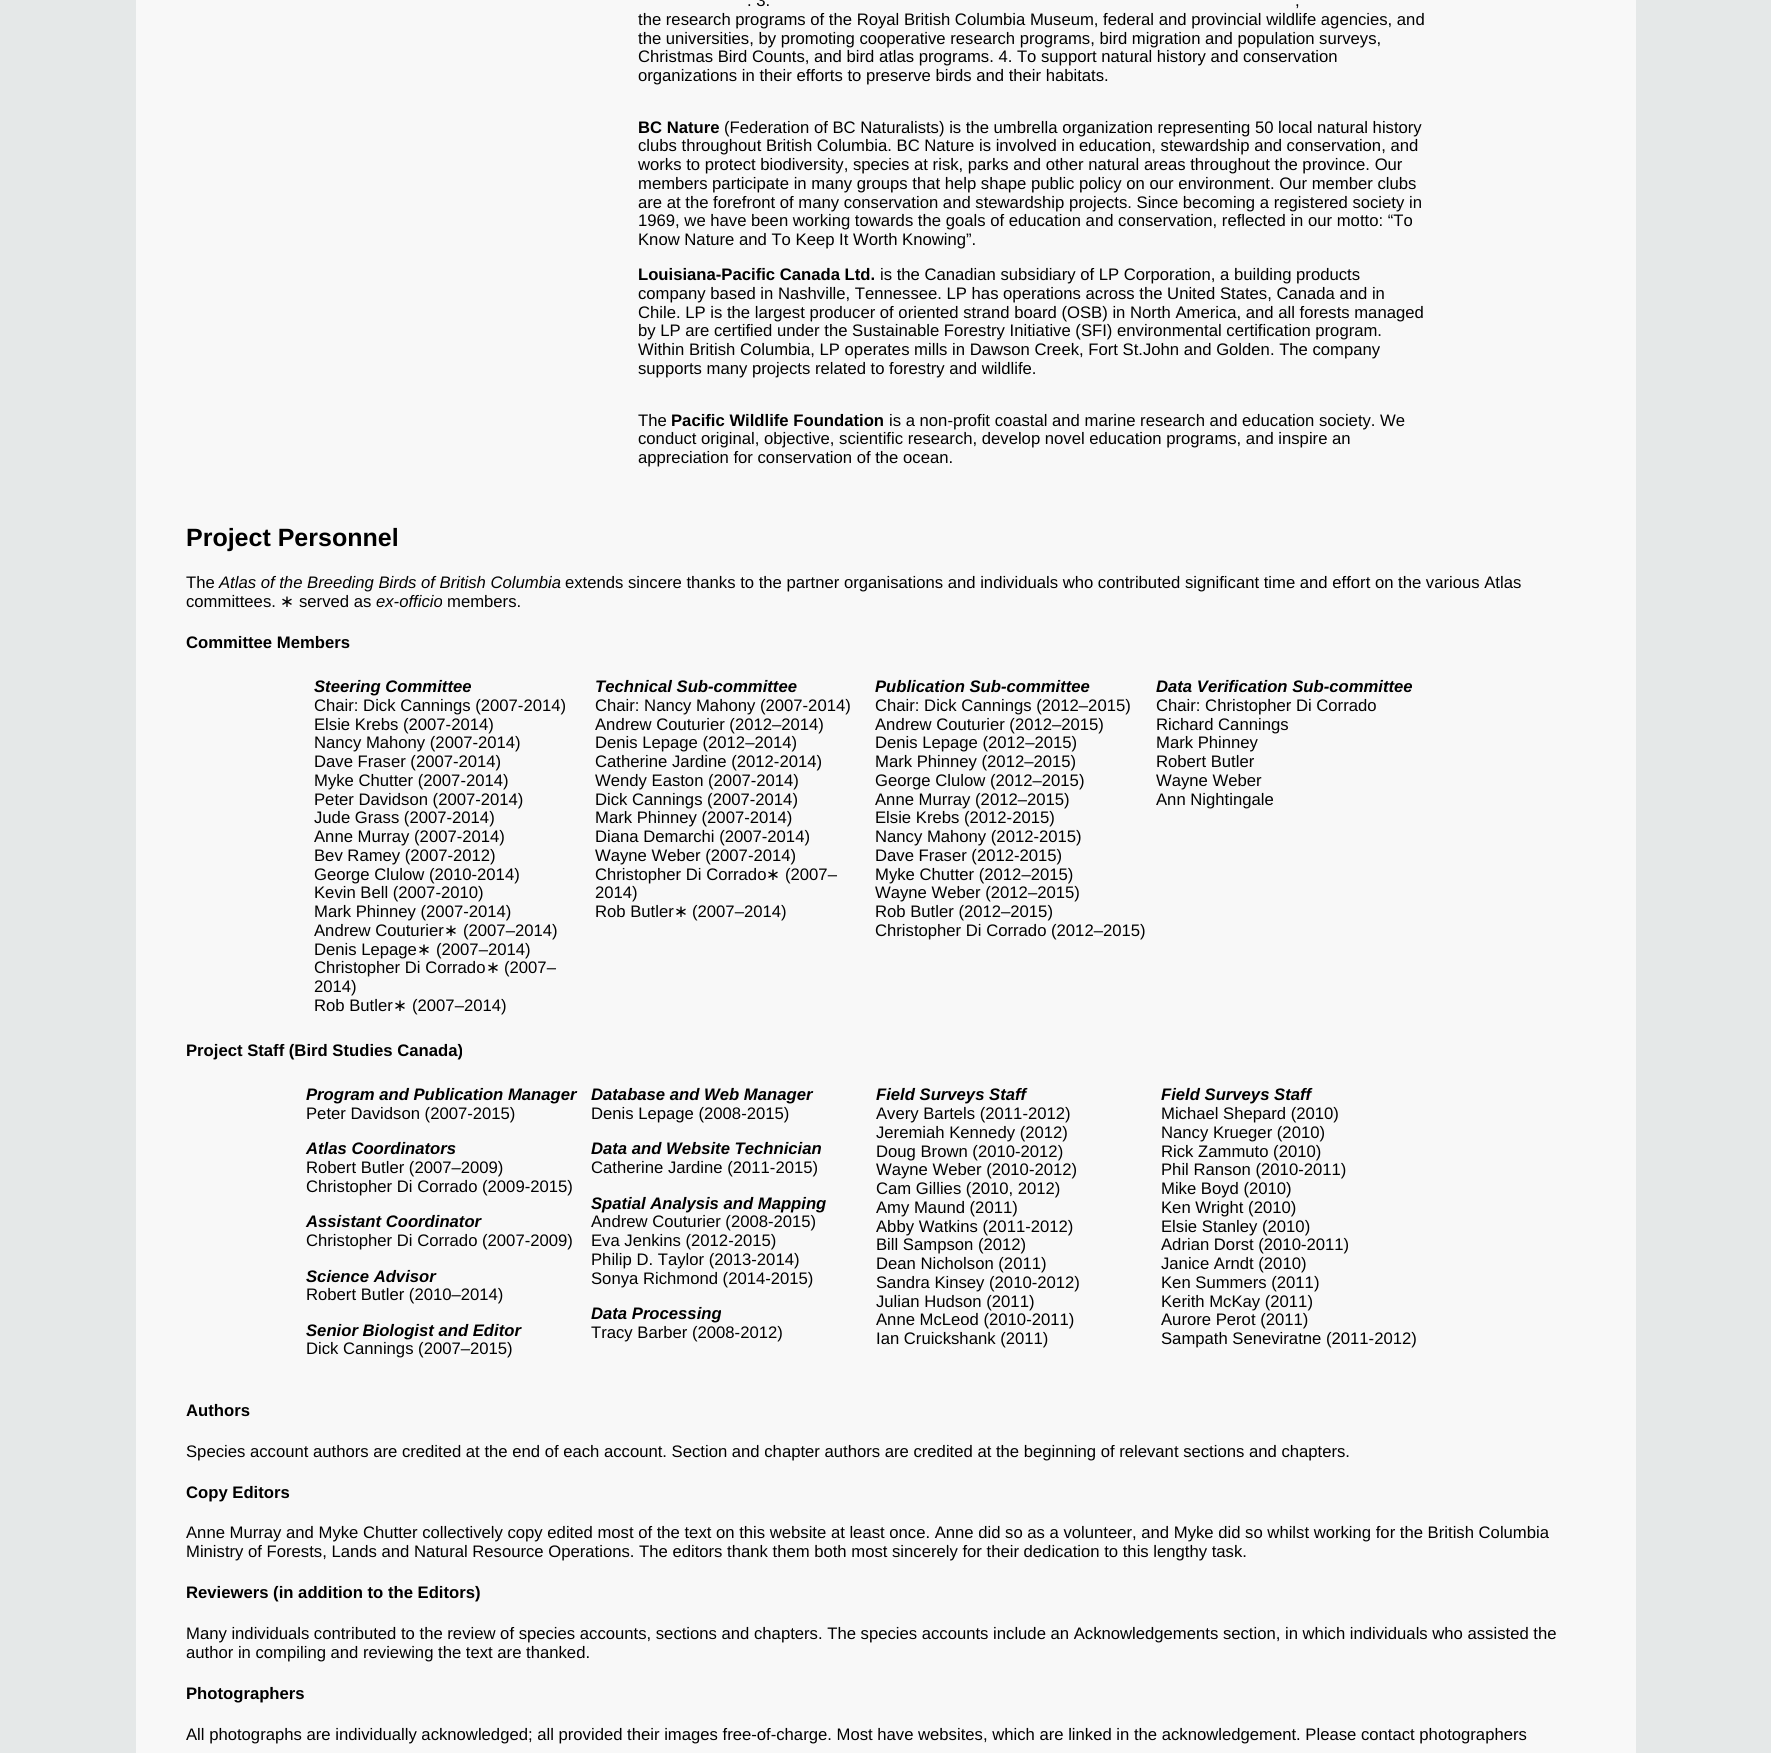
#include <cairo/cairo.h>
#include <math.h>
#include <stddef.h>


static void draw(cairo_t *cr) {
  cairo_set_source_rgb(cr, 229 / 255.0, 232 / 255.0, 232 / 255.0);
  cairo_paint(cr);
  cairo_set_source_rgb(cr, 248 / 255.0, 248 / 255.0, 248 / 255.0);
  cairo_rectangle(cr, 136, 0, 1500, 1753);
  cairo_fill(cr);
  cairo_select_font_face(cr, "Liberation Sans", CAIRO_FONT_SLANT_NORMAL, CAIRO_FONT_WEIGHT_NORMAL);
  cairo_set_font_size(cr, 16.67);
  cairo_set_source_rgb(cr, 0, 0, 0);
  cairo_move_to(cr, 747, 6);
  cairo_show_text(cr, ". 3.");
  cairo_move_to(cr, 1295, 6);
  cairo_show_text(cr, ",");
  cairo_move_to(cr, 638, 25);
  cairo_show_text(cr, "the research programs of the Royal British Columbia Museum, federal and provincial wildlife agencies, and");
  cairo_move_to(cr, 638, 44);
  cairo_show_text(cr, "the universities, by promoting cooperative research programs, bird migration and population surveys,");
  cairo_move_to(cr, 638, 62);
  cairo_show_text(cr, "Christmas Bird Counts, and bird atlas programs. 4. To support natural history and conservation");
  cairo_move_to(cr, 638, 81);
  cairo_show_text(cr, "organizations in their efforts to preserve birds and their habitats.");
  cairo_select_font_face(cr, "Liberation Sans", CAIRO_FONT_SLANT_NORMAL, CAIRO_FONT_WEIGHT_BOLD);
  cairo_move_to(cr, 638, 133);
  cairo_show_text(cr, "BC Nature");
  cairo_select_font_face(cr, "Liberation Sans", CAIRO_FONT_SLANT_NORMAL, CAIRO_FONT_WEIGHT_NORMAL);
  cairo_move_to(cr, 724, 133);
  cairo_show_text(cr, "(Federation of BC Naturalists) is the umbrella organization representing 50 local natural history");
  cairo_move_to(cr, 638, 151);
  cairo_show_text(cr, "clubs throughout British Columbia. BC Nature is involved in education, stewardship and conservation, and");
  cairo_move_to(cr, 638, 170);
  cairo_show_text(cr, "works to protect biodiversity, species at risk, parks and other natural areas throughout the province. Our");
  cairo_move_to(cr, 638, 189);
  cairo_show_text(cr, "members participate in many groups that help shape public policy on our environment. Our member clubs");
  cairo_move_to(cr, 638, 208);
  cairo_show_text(cr, "are at the forefront of many conservation and stewardship projects. Since becoming a registered society in");
  cairo_move_to(cr, 638, 226);
  cairo_show_text(cr, "1969, we have been working towards the goals of education and conservation, reflected in our motto: “To");
  cairo_move_to(cr, 638, 245);
  cairo_show_text(cr, "Know Nature and To Keep It Worth Knowing”.");
  cairo_select_font_face(cr, "Liberation Sans", CAIRO_FONT_SLANT_NORMAL, CAIRO_FONT_WEIGHT_BOLD);
  cairo_move_to(cr, 638, 280);
  cairo_show_text(cr, "Louisiana-Pacific Canada Ltd.");
  cairo_select_font_face(cr, "Liberation Sans", CAIRO_FONT_SLANT_NORMAL, CAIRO_FONT_WEIGHT_NORMAL);
  cairo_move_to(cr, 880, 280);
  cairo_show_text(cr, "is the Canadian subsidiary of LP Corporation, a building products");
  cairo_move_to(cr, 638, 299);
  cairo_show_text(cr, "company based in Nashville, Tennessee. LP has operations across the United States, Canada and in");
  cairo_move_to(cr, 638, 318);
  cairo_show_text(cr, "Chile. LP is the largest producer of oriented strand board (OSB) in North America, and all forests managed");
  cairo_move_to(cr, 638, 336);
  cairo_show_text(cr, "by LP are certified under the Sustainable Forestry Initiative (SFI) environmental certification program.");
  cairo_move_to(cr, 638, 355);
  cairo_show_text(cr, "Within British Columbia, LP operates mills in Dawson Creek, Fort St.John and Golden. The company");
  cairo_move_to(cr, 638, 374);
  cairo_show_text(cr, "supports many projects related to forestry and wildlife.");
  cairo_move_to(cr, 638, 426);
  cairo_show_text(cr, "The");
  cairo_select_font_face(cr, "Liberation Sans", CAIRO_FONT_SLANT_NORMAL, CAIRO_FONT_WEIGHT_BOLD);
  cairo_move_to(cr, 671, 426);
  cairo_show_text(cr, "Pacific Wildlife Foundation");
  cairo_select_font_face(cr, "Liberation Sans", CAIRO_FONT_SLANT_NORMAL, CAIRO_FONT_WEIGHT_NORMAL);
  cairo_move_to(cr, 889, 426);
  cairo_show_text(cr, "is a non-profit coastal and marine research and education society. We");
  cairo_move_to(cr, 638, 444);
  cairo_show_text(cr, "conduct original, objective, scientific research, develop novel education programs, and inspire an");
  cairo_move_to(cr, 638, 463);
  cairo_show_text(cr, "appreciation for conservation of the ocean.");
  cairo_select_font_face(cr, "Liberation Sans", CAIRO_FONT_SLANT_NORMAL, CAIRO_FONT_WEIGHT_BOLD);
  cairo_set_font_size(cr, 25);
  cairo_move_to(cr, 186, 546);
  cairo_show_text(cr, "Project Personnel");
  cairo_select_font_face(cr, "Liberation Sans", CAIRO_FONT_SLANT_NORMAL, CAIRO_FONT_WEIGHT_NORMAL);
  cairo_set_font_size(cr, 16.67);
  cairo_move_to(cr, 186, 588);
  cairo_show_text(cr, "The");
  cairo_select_font_face(cr, "Liberation Sans", CAIRO_FONT_SLANT_ITALIC, CAIRO_FONT_WEIGHT_NORMAL);
  cairo_move_to(cr, 219, 588);
  cairo_show_text(cr, "Atlas of the Breeding Birds of British Columbia");
  cairo_select_font_face(cr, "Liberation Sans", CAIRO_FONT_SLANT_NORMAL, CAIRO_FONT_WEIGHT_NORMAL);
  cairo_move_to(cr, 565, 588);
  cairo_show_text(cr, "extends sincere thanks to the partner organisations and individuals who contributed significant time and effort on the various Atlas");
  cairo_move_to(cr, 186, 607);
  cairo_show_text(cr, "committees.");
  cairo_select_font_face(cr, "DejaVu Sans", CAIRO_FONT_SLANT_NORMAL, CAIRO_FONT_WEIGHT_NORMAL);
  cairo_move_to(cr, 280, 607);
  cairo_show_text(cr, "∗");
  cairo_select_font_face(cr, "Liberation Sans", CAIRO_FONT_SLANT_NORMAL, CAIRO_FONT_WEIGHT_NORMAL);
  cairo_move_to(cr, 299, 607);
  cairo_show_text(cr, "served as");
  cairo_select_font_face(cr, "Liberation Sans", CAIRO_FONT_SLANT_ITALIC, CAIRO_FONT_WEIGHT_NORMAL);
  cairo_move_to(cr, 376, 607);
  cairo_show_text(cr, "ex-officio");
  cairo_select_font_face(cr, "Liberation Sans", CAIRO_FONT_SLANT_NORMAL, CAIRO_FONT_WEIGHT_NORMAL);
  cairo_move_to(cr, 447, 607);
  cairo_show_text(cr, "members.");
  cairo_select_font_face(cr, "Liberation Sans", CAIRO_FONT_SLANT_NORMAL, CAIRO_FONT_WEIGHT_BOLD);
  cairo_move_to(cr, 186, 648);
  cairo_show_text(cr, "Committee Members");
  cairo_select_font_face(cr, "Liberation Sans", CAIRO_FONT_SLANT_ITALIC, CAIRO_FONT_WEIGHT_BOLD);
  cairo_move_to(cr, 314, 692);
  cairo_show_text(cr, "Steering Committee");
  cairo_select_font_face(cr, "Liberation Sans", CAIRO_FONT_SLANT_NORMAL, CAIRO_FONT_WEIGHT_NORMAL);
  cairo_move_to(cr, 314, 711);
  cairo_show_text(cr, "Chair: Dick Cannings (2007-2014)");
  cairo_move_to(cr, 314, 730);
  cairo_show_text(cr, "Elsie Krebs (2007-2014)");
  cairo_move_to(cr, 314, 748);
  cairo_show_text(cr, "Nancy Mahony (2007-2014)");
  cairo_move_to(cr, 314, 767);
  cairo_show_text(cr, "Dave Fraser (2007-2014)");
  cairo_move_to(cr, 314, 786);
  cairo_show_text(cr, "Myke Chutter (2007-2014)");
  cairo_move_to(cr, 314, 805);
  cairo_show_text(cr, "Peter Davidson (2007-2014)");
  cairo_move_to(cr, 314, 823);
  cairo_show_text(cr, "Jude Grass (2007-2014)");
  cairo_move_to(cr, 314, 842);
  cairo_show_text(cr, "Anne Murray (2007-2014)");
  cairo_move_to(cr, 314, 861);
  cairo_show_text(cr, "Bev Ramey (2007-2012)");
  cairo_move_to(cr, 314, 880);
  cairo_show_text(cr, "George Clulow (2010-2014)");
  cairo_move_to(cr, 314, 898);
  cairo_show_text(cr, "Kevin Bell (2007-2010)");
  cairo_move_to(cr, 314, 917);
  cairo_show_text(cr, "Mark Phinney (2007-2014)");
  cairo_move_to(cr, 314, 936);
  cairo_show_text(cr, "Andrew Couturier");
  cairo_select_font_face(cr, "DejaVu Sans", CAIRO_FONT_SLANT_NORMAL, CAIRO_FONT_WEIGHT_NORMAL);
  cairo_move_to(cr, 444, 936);
  cairo_show_text(cr, "∗");
  cairo_select_font_face(cr, "Liberation Sans", CAIRO_FONT_SLANT_NORMAL, CAIRO_FONT_WEIGHT_NORMAL);
  cairo_move_to(cr, 463, 936);
  cairo_show_text(cr, "(2007–2014)");
  cairo_move_to(cr, 314, 955);
  cairo_show_text(cr, "Denis Lepage");
  cairo_select_font_face(cr, "DejaVu Sans", CAIRO_FONT_SLANT_NORMAL, CAIRO_FONT_WEIGHT_NORMAL);
  cairo_move_to(cr, 417, 955);
  cairo_show_text(cr, "∗");
  cairo_select_font_face(cr, "Liberation Sans", CAIRO_FONT_SLANT_NORMAL, CAIRO_FONT_WEIGHT_NORMAL);
  cairo_move_to(cr, 436, 955);
  cairo_show_text(cr, "(2007–2014)");
  cairo_move_to(cr, 314, 973);
  cairo_show_text(cr, "Christopher Di Corrado");
  cairo_select_font_face(cr, "DejaVu Sans", CAIRO_FONT_SLANT_NORMAL, CAIRO_FONT_WEIGHT_NORMAL);
  cairo_move_to(cr, 486, 973);
  cairo_show_text(cr, "∗");
  cairo_select_font_face(cr, "Liberation Sans", CAIRO_FONT_SLANT_NORMAL, CAIRO_FONT_WEIGHT_NORMAL);
  cairo_move_to(cr, 504, 973);
  cairo_show_text(cr, "(2007–");
  cairo_move_to(cr, 314, 992);
  cairo_show_text(cr, "2014)");
  cairo_move_to(cr, 314, 1011);
  cairo_show_text(cr, "Rob Butler");
  cairo_select_font_face(cr, "DejaVu Sans", CAIRO_FONT_SLANT_NORMAL, CAIRO_FONT_WEIGHT_NORMAL);
  cairo_move_to(cr, 393, 1011);
  cairo_show_text(cr, "∗");
  cairo_select_font_face(cr, "Liberation Sans", CAIRO_FONT_SLANT_NORMAL, CAIRO_FONT_WEIGHT_NORMAL);
  cairo_move_to(cr, 412, 1011);
  cairo_show_text(cr, "(2007–2014)");
  cairo_select_font_face(cr, "Liberation Sans", CAIRO_FONT_SLANT_ITALIC, CAIRO_FONT_WEIGHT_BOLD);
  cairo_move_to(cr, 595, 692);
  cairo_show_text(cr, "Technical Sub-committee");
  cairo_select_font_face(cr, "Liberation Sans", CAIRO_FONT_SLANT_NORMAL, CAIRO_FONT_WEIGHT_NORMAL);
  cairo_move_to(cr, 595, 711);
  cairo_show_text(cr, "Chair: Nancy Mahony (2007-2014)");
  cairo_move_to(cr, 595, 730);
  cairo_show_text(cr, "Andrew Couturier (2012–2014)");
  cairo_move_to(cr, 595, 748);
  cairo_show_text(cr, "Denis Lepage (2012–2014)");
  cairo_move_to(cr, 595, 767);
  cairo_show_text(cr, "Catherine Jardine (2012-2014)");
  cairo_move_to(cr, 595, 786);
  cairo_show_text(cr, "Wendy Easton (2007-2014)");
  cairo_move_to(cr, 595, 805);
  cairo_show_text(cr, "Dick Cannings (2007-2014)");
  cairo_move_to(cr, 595, 823);
  cairo_show_text(cr, "Mark Phinney (2007-2014)");
  cairo_move_to(cr, 595, 842);
  cairo_show_text(cr, "Diana Demarchi (2007-2014)");
  cairo_move_to(cr, 595, 861);
  cairo_show_text(cr, "Wayne Weber (2007-2014)");
  cairo_move_to(cr, 595, 880);
  cairo_show_text(cr, "Christopher Di Corrado");
  cairo_select_font_face(cr, "DejaVu Sans", CAIRO_FONT_SLANT_NORMAL, CAIRO_FONT_WEIGHT_NORMAL);
  cairo_move_to(cr, 766, 880);
  cairo_show_text(cr, "∗");
  cairo_select_font_face(cr, "Liberation Sans", CAIRO_FONT_SLANT_NORMAL, CAIRO_FONT_WEIGHT_NORMAL);
  cairo_move_to(cr, 785, 880);
  cairo_show_text(cr, "(2007–");
  cairo_move_to(cr, 595, 898);
  cairo_show_text(cr, "2014)");
  cairo_move_to(cr, 595, 917);
  cairo_show_text(cr, "Rob Butler");
  cairo_select_font_face(cr, "DejaVu Sans", CAIRO_FONT_SLANT_NORMAL, CAIRO_FONT_WEIGHT_NORMAL);
  cairo_move_to(cr, 674, 917);
  cairo_show_text(cr, "∗");
  cairo_select_font_face(cr, "Liberation Sans", CAIRO_FONT_SLANT_NORMAL, CAIRO_FONT_WEIGHT_NORMAL);
  cairo_move_to(cr, 692, 917);
  cairo_show_text(cr, "(2007–2014)");
  cairo_select_font_face(cr, "Liberation Sans", CAIRO_FONT_SLANT_ITALIC, CAIRO_FONT_WEIGHT_BOLD);
  cairo_move_to(cr, 875, 692);
  cairo_show_text(cr, "Publication Sub-committee");
  cairo_select_font_face(cr, "Liberation Sans", CAIRO_FONT_SLANT_NORMAL, CAIRO_FONT_WEIGHT_NORMAL);
  cairo_move_to(cr, 875, 711);
  cairo_show_text(cr, "Chair: Dick Cannings (2012–2015)");
  cairo_move_to(cr, 875, 730);
  cairo_show_text(cr, "Andrew Couturier (2012–2015)");
  cairo_move_to(cr, 875, 748);
  cairo_show_text(cr, "Denis Lepage (2012–2015)");
  cairo_move_to(cr, 875, 767);
  cairo_show_text(cr, "Mark Phinney (2012–2015)");
  cairo_move_to(cr, 875, 786);
  cairo_show_text(cr, "George Clulow (2012–2015)");
  cairo_move_to(cr, 875, 805);
  cairo_show_text(cr, "Anne Murray (2012–2015)");
  cairo_move_to(cr, 875, 823);
  cairo_show_text(cr, "Elsie Krebs (2012-2015)");
  cairo_move_to(cr, 875, 842);
  cairo_show_text(cr, "Nancy Mahony (2012-2015)");
  cairo_move_to(cr, 875, 861);
  cairo_show_text(cr, "Dave Fraser (2012-2015)");
  cairo_move_to(cr, 875, 880);
  cairo_show_text(cr, "Myke Chutter (2012–2015)");
  cairo_move_to(cr, 875, 898);
  cairo_show_text(cr, "Wayne Weber (2012–2015)");
  cairo_move_to(cr, 875, 917);
  cairo_show_text(cr, "Rob Butler (2012–2015)");
  cairo_move_to(cr, 875, 936);
  cairo_show_text(cr, "Christopher Di Corrado (2012–2015)");
  cairo_select_font_face(cr, "Liberation Sans", CAIRO_FONT_SLANT_ITALIC, CAIRO_FONT_WEIGHT_BOLD);
  cairo_move_to(cr, 1156, 692);
  cairo_show_text(cr, "Data Verification Sub-committee");
  cairo_select_font_face(cr, "Liberation Sans", CAIRO_FONT_SLANT_NORMAL, CAIRO_FONT_WEIGHT_NORMAL);
  cairo_move_to(cr, 1156, 711);
  cairo_show_text(cr, "Chair: Christopher Di Corrado");
  cairo_move_to(cr, 1156, 730);
  cairo_show_text(cr, "Richard Cannings");
  cairo_move_to(cr, 1156, 748);
  cairo_show_text(cr, "Mark Phinney");
  cairo_move_to(cr, 1156, 767);
  cairo_show_text(cr, "Robert Butler");
  cairo_move_to(cr, 1156, 786);
  cairo_show_text(cr, "Wayne Weber");
  cairo_move_to(cr, 1156, 805);
  cairo_show_text(cr, "Ann Nightingale");
  cairo_select_font_face(cr, "Liberation Sans", CAIRO_FONT_SLANT_NORMAL, CAIRO_FONT_WEIGHT_BOLD);
  cairo_move_to(cr, 186, 1056);
  cairo_show_text(cr, "Project Staff (Bird Studies Canada)");
  cairo_select_font_face(cr, "Liberation Sans", CAIRO_FONT_SLANT_ITALIC, CAIRO_FONT_WEIGHT_BOLD);
  cairo_move_to(cr, 306, 1100);
  cairo_show_text(cr, "Program and Publication Manager");
  cairo_select_font_face(cr, "Liberation Sans", CAIRO_FONT_SLANT_NORMAL, CAIRO_FONT_WEIGHT_NORMAL);
  cairo_move_to(cr, 306, 1119);
  cairo_show_text(cr, "Peter Davidson (2007-2015)");
  cairo_select_font_face(cr, "Liberation Sans", CAIRO_FONT_SLANT_ITALIC, CAIRO_FONT_WEIGHT_BOLD);
  cairo_move_to(cr, 306, 1154);
  cairo_show_text(cr, "Atlas Coordinators");
  cairo_select_font_face(cr, "Liberation Sans", CAIRO_FONT_SLANT_NORMAL, CAIRO_FONT_WEIGHT_NORMAL);
  cairo_move_to(cr, 306, 1173);
  cairo_show_text(cr, "Robert Butler (2007–2009)");
  cairo_move_to(cr, 306, 1192);
  cairo_show_text(cr, "Christopher Di Corrado (2009-2015)");
  cairo_select_font_face(cr, "Liberation Sans", CAIRO_FONT_SLANT_ITALIC, CAIRO_FONT_WEIGHT_BOLD);
  cairo_move_to(cr, 306, 1227);
  cairo_show_text(cr, "Assistant Coordinator");
  cairo_select_font_face(cr, "Liberation Sans", CAIRO_FONT_SLANT_NORMAL, CAIRO_FONT_WEIGHT_NORMAL);
  cairo_move_to(cr, 306, 1246);
  cairo_show_text(cr, "Christopher Di Corrado (2007-2009)");
  cairo_select_font_face(cr, "Liberation Sans", CAIRO_FONT_SLANT_ITALIC, CAIRO_FONT_WEIGHT_BOLD);
  cairo_move_to(cr, 306, 1282);
  cairo_show_text(cr, "Science Advisor");
  cairo_select_font_face(cr, "Liberation Sans", CAIRO_FONT_SLANT_NORMAL, CAIRO_FONT_WEIGHT_NORMAL);
  cairo_move_to(cr, 306, 1300);
  cairo_show_text(cr, "Robert Butler (2010–2014)");
  cairo_select_font_face(cr, "Liberation Sans", CAIRO_FONT_SLANT_ITALIC, CAIRO_FONT_WEIGHT_BOLD);
  cairo_move_to(cr, 306, 1336);
  cairo_show_text(cr, "Senior Biologist and Editor");
  cairo_select_font_face(cr, "Liberation Sans", CAIRO_FONT_SLANT_NORMAL, CAIRO_FONT_WEIGHT_NORMAL);
  cairo_move_to(cr, 306, 1354);
  cairo_show_text(cr, "Dick Cannings (2007–2015)");
  cairo_select_font_face(cr, "Liberation Sans", CAIRO_FONT_SLANT_ITALIC, CAIRO_FONT_WEIGHT_BOLD);
  cairo_move_to(cr, 591, 1100);
  cairo_show_text(cr, "Database and Web Manager");
  cairo_select_font_face(cr, "Liberation Sans", CAIRO_FONT_SLANT_NORMAL, CAIRO_FONT_WEIGHT_NORMAL);
  cairo_move_to(cr, 591, 1119);
  cairo_show_text(cr, "Denis Lepage (2008-2015)");
  cairo_select_font_face(cr, "Liberation Sans", CAIRO_FONT_SLANT_ITALIC, CAIRO_FONT_WEIGHT_BOLD);
  cairo_move_to(cr, 591, 1154);
  cairo_show_text(cr, "Data and Website Technician");
  cairo_select_font_face(cr, "Liberation Sans", CAIRO_FONT_SLANT_NORMAL, CAIRO_FONT_WEIGHT_NORMAL);
  cairo_move_to(cr, 591, 1173);
  cairo_show_text(cr, "Catherine Jardine (2011-2015)");
  cairo_select_font_face(cr, "Liberation Sans", CAIRO_FONT_SLANT_ITALIC, CAIRO_FONT_WEIGHT_BOLD);
  cairo_move_to(cr, 591, 1209);
  cairo_show_text(cr, "Spatial Analysis and Mapping");
  cairo_select_font_face(cr, "Liberation Sans", CAIRO_FONT_SLANT_NORMAL, CAIRO_FONT_WEIGHT_NORMAL);
  cairo_move_to(cr, 591, 1227);
  cairo_show_text(cr, "Andrew Couturier (2008-2015)");
  cairo_move_to(cr, 591, 1246);
  cairo_show_text(cr, "Eva Jenkins (2012-2015)");
  cairo_move_to(cr, 591, 1265);
  cairo_show_text(cr, "Philip D. Taylor (2013-2014)");
  cairo_move_to(cr, 591, 1284);
  cairo_show_text(cr, "Sonya Richmond (2014-2015)");
  cairo_select_font_face(cr, "Liberation Sans", CAIRO_FONT_SLANT_ITALIC, CAIRO_FONT_WEIGHT_BOLD);
  cairo_move_to(cr, 591, 1319);
  cairo_show_text(cr, "Data Processing");
  cairo_select_font_face(cr, "Liberation Sans", CAIRO_FONT_SLANT_NORMAL, CAIRO_FONT_WEIGHT_NORMAL);
  cairo_move_to(cr, 591, 1338);
  cairo_show_text(cr, "Tracy Barber (2008-2012)");
  cairo_select_font_face(cr, "Liberation Sans", CAIRO_FONT_SLANT_ITALIC, CAIRO_FONT_WEIGHT_BOLD);
  cairo_move_to(cr, 876, 1100);
  cairo_show_text(cr, "Field Surveys Staff");
  cairo_select_font_face(cr, "Liberation Sans", CAIRO_FONT_SLANT_NORMAL, CAIRO_FONT_WEIGHT_NORMAL);
  cairo_move_to(cr, 876, 1119);
  cairo_show_text(cr, "Avery Bartels (2011-2012)");
  cairo_move_to(cr, 876, 1138);
  cairo_show_text(cr, "Jeremiah Kennedy (2012)");
  cairo_move_to(cr, 876, 1157);
  cairo_show_text(cr, "Doug Brown (2010-2012)");
  cairo_move_to(cr, 876, 1175);
  cairo_show_text(cr, "Wayne Weber (2010-2012)");
  cairo_move_to(cr, 876, 1194);
  cairo_show_text(cr, "Cam Gillies (2010, 2012)");
  cairo_move_to(cr, 876, 1213);
  cairo_show_text(cr, "Amy Maund (2011)");
  cairo_move_to(cr, 876, 1232);
  cairo_show_text(cr, "Abby Watkins (2011-2012)");
  cairo_move_to(cr, 876, 1250);
  cairo_show_text(cr, "Bill Sampson (2012)");
  cairo_move_to(cr, 876, 1269);
  cairo_show_text(cr, "Dean Nicholson (2011)");
  cairo_move_to(cr, 876, 1288);
  cairo_show_text(cr, "Sandra Kinsey (2010-2012)");
  cairo_move_to(cr, 876, 1307);
  cairo_show_text(cr, "Julian Hudson (2011)");
  cairo_move_to(cr, 876, 1325);
  cairo_show_text(cr, "Anne McLeod (2010-2011)");
  cairo_move_to(cr, 876, 1344);
  cairo_show_text(cr, "Ian Cruickshank (2011)");
  cairo_select_font_face(cr, "Liberation Sans", CAIRO_FONT_SLANT_ITALIC, CAIRO_FONT_WEIGHT_BOLD);
  cairo_move_to(cr, 1161, 1100);
  cairo_show_text(cr, "Field Surveys Staff");
  cairo_select_font_face(cr, "Liberation Sans", CAIRO_FONT_SLANT_NORMAL, CAIRO_FONT_WEIGHT_NORMAL);
  cairo_move_to(cr, 1161, 1119);
  cairo_show_text(cr, "Michael Shepard (2010)");
  cairo_move_to(cr, 1161, 1138);
  cairo_show_text(cr, "Nancy Krueger (2010)");
  cairo_move_to(cr, 1161, 1157);
  cairo_show_text(cr, "Rick Zammuto (2010)");
  cairo_move_to(cr, 1161, 1175);
  cairo_show_text(cr, "Phil Ranson (2010-2011)");
  cairo_move_to(cr, 1161, 1194);
  cairo_show_text(cr, "Mike Boyd (2010)");
  cairo_move_to(cr, 1161, 1213);
  cairo_show_text(cr, "Ken Wright (2010)");
  cairo_move_to(cr, 1161, 1232);
  cairo_show_text(cr, "Elsie Stanley (2010)");
  cairo_move_to(cr, 1161, 1250);
  cairo_show_text(cr, "Adrian Dorst (2010-2011)");
  cairo_move_to(cr, 1161, 1269);
  cairo_show_text(cr, "Janice Arndt (2010)");
  cairo_move_to(cr, 1161, 1288);
  cairo_show_text(cr, "Ken Summers (2011)");
  cairo_move_to(cr, 1161, 1307);
  cairo_show_text(cr, "Kerith McKay (2011)");
  cairo_move_to(cr, 1161, 1325);
  cairo_show_text(cr, "Aurore Perot (2011)");
  cairo_move_to(cr, 1161, 1344);
  cairo_show_text(cr, "Sampath Seneviratne (2011-2012)");
  cairo_select_font_face(cr, "Liberation Sans", CAIRO_FONT_SLANT_NORMAL, CAIRO_FONT_WEIGHT_BOLD);
  cairo_move_to(cr, 186, 1416);
  cairo_show_text(cr, "Authors");
  cairo_select_font_face(cr, "Liberation Sans", CAIRO_FONT_SLANT_NORMAL, CAIRO_FONT_WEIGHT_NORMAL);
  cairo_move_to(cr, 186, 1457);
  cairo_show_text(cr, "Species account authors are credited at the end of each account. Section and chapter authors are credited at the beginning of relevant sections and chapters.");
  cairo_select_font_face(cr, "Liberation Sans", CAIRO_FONT_SLANT_NORMAL, CAIRO_FONT_WEIGHT_BOLD);
  cairo_move_to(cr, 186, 1498);
  cairo_show_text(cr, "Copy Editors");
  cairo_select_font_face(cr, "Liberation Sans", CAIRO_FONT_SLANT_NORMAL, CAIRO_FONT_WEIGHT_NORMAL);
  cairo_move_to(cr, 186, 1538);
  cairo_show_text(cr, "Anne Murray and Myke Chutter collectively copy edited most of the text on this website at least once. Anne did so as a volunteer, and Myke did so whilst working for the British Columbia");
  cairo_move_to(cr, 186, 1557);
  cairo_show_text(cr, "Ministry of Forests, Lands and Natural Resource Operations. The editors thank them both most sincerely for their dedication to this lengthy task.");
  cairo_select_font_face(cr, "Liberation Sans", CAIRO_FONT_SLANT_NORMAL, CAIRO_FONT_WEIGHT_BOLD);
  cairo_move_to(cr, 186, 1598);
  cairo_show_text(cr, "Reviewers (in addition to the Editors)");
  cairo_select_font_face(cr, "Liberation Sans", CAIRO_FONT_SLANT_NORMAL, CAIRO_FONT_WEIGHT_NORMAL);
  cairo_move_to(cr, 186, 1639);
  cairo_show_text(cr, "Many individuals contributed to the review of species accounts, sections and chapters. The species accounts include an Acknowledgements section, in which individuals who assisted the");
  cairo_move_to(cr, 186, 1658);
  cairo_show_text(cr, "author in compiling and reviewing the text are thanked.");
  cairo_select_font_face(cr, "Liberation Sans", CAIRO_FONT_SLANT_NORMAL, CAIRO_FONT_WEIGHT_BOLD);
  cairo_move_to(cr, 186, 1699);
  cairo_show_text(cr, "Photographers");
  cairo_select_font_face(cr, "Liberation Sans", CAIRO_FONT_SLANT_NORMAL, CAIRO_FONT_WEIGHT_NORMAL);
  cairo_move_to(cr, 186, 1740);
  cairo_show_text(cr, "All photographs are individually acknowledged; all provided their images free-of-charge. Most have websites, which are linked in the acknowledgement. Please contact photographers");
}

int main(void) {
  cairo_surface_t *surface = cairo_image_surface_create(CAIRO_FORMAT_RGB24, 1771, 1753);
  cairo_t *cr = cairo_create(surface);
  cairo_font_options_t *options = cairo_font_options_create();
  cairo_font_options_set_hint_metrics(options, CAIRO_HINT_METRICS_OFF);
  cairo_font_options_set_hint_style(options, CAIRO_HINT_STYLE_NONE);
  cairo_set_font_options(cr, options);
  cairo_set_miter_limit(cr, 4);
  draw(cr);
  cairo_surface_write_to_png(surface, "out.png");
  cairo_font_options_destroy(options);
  cairo_destroy(cr);
  cairo_surface_destroy(surface);
  return 0;
}
